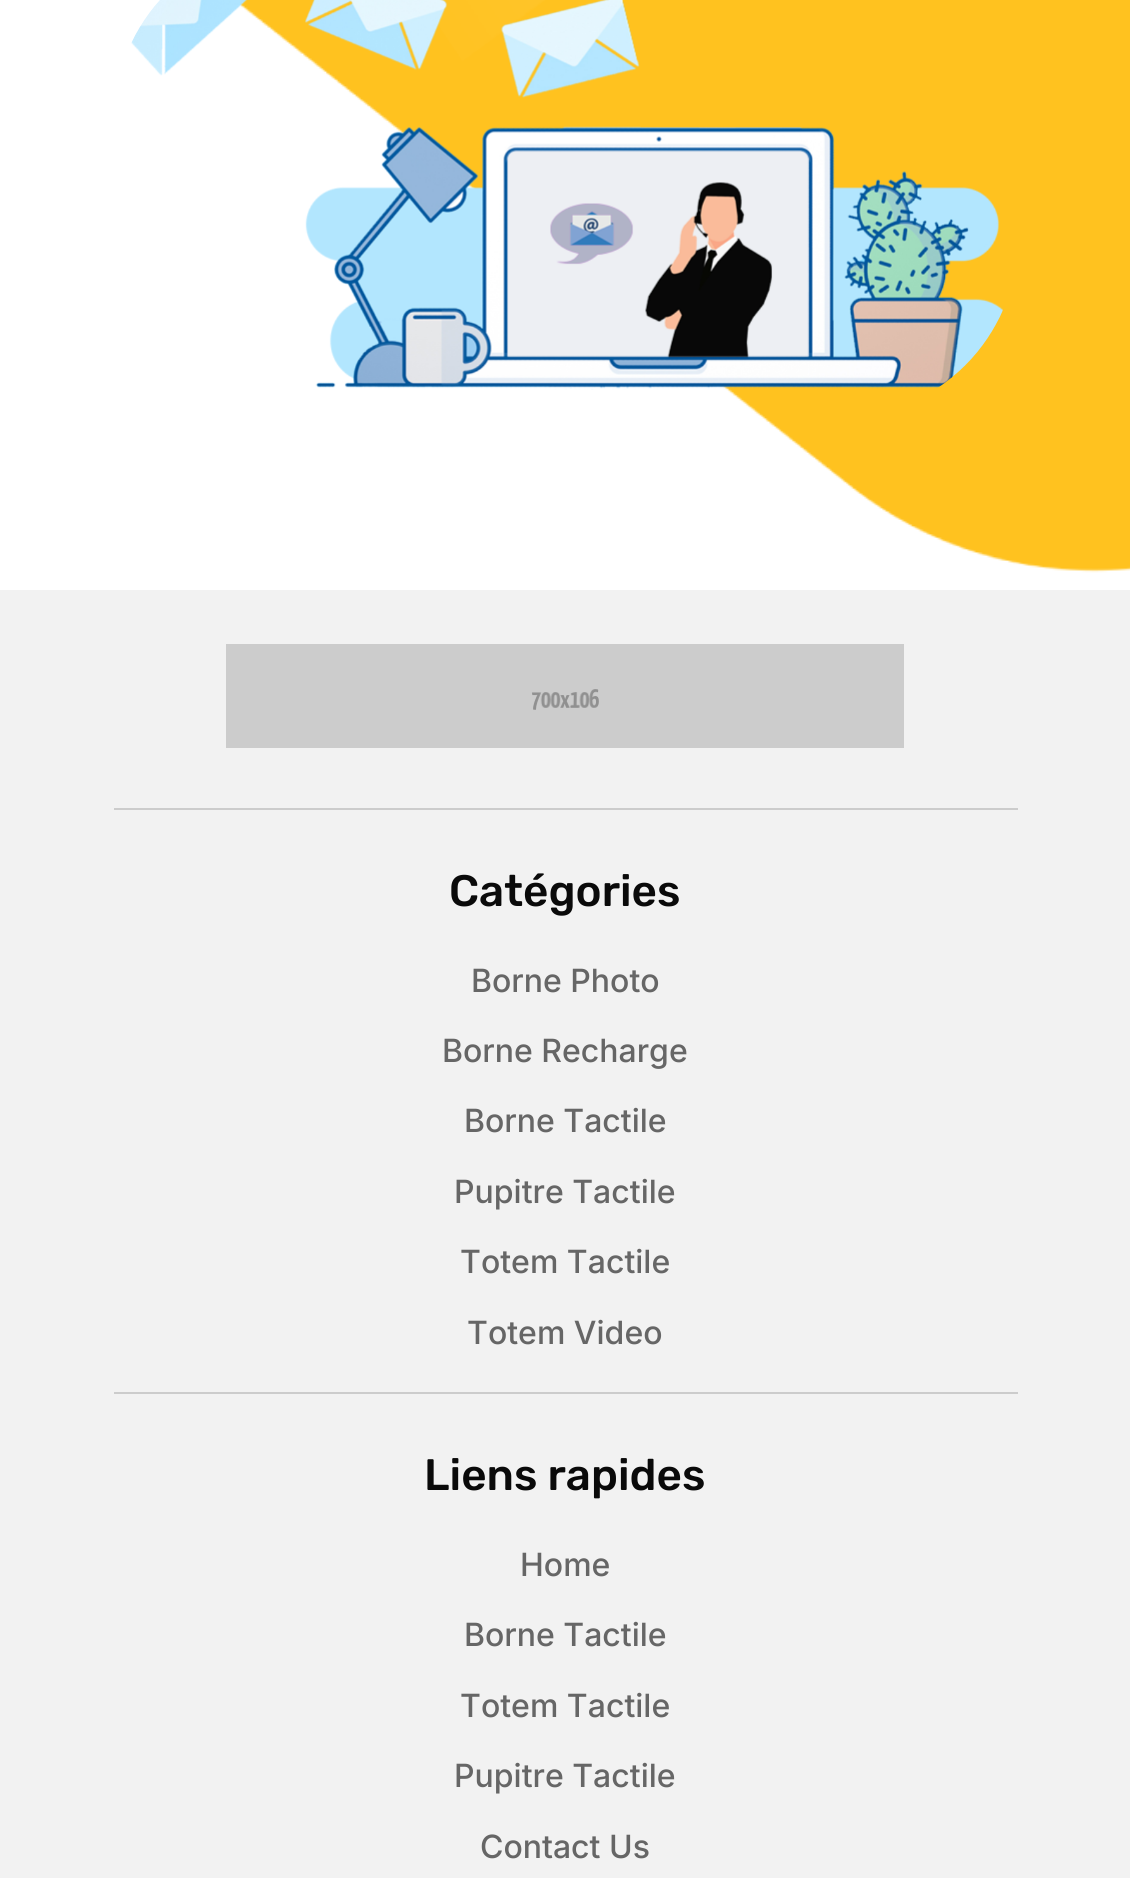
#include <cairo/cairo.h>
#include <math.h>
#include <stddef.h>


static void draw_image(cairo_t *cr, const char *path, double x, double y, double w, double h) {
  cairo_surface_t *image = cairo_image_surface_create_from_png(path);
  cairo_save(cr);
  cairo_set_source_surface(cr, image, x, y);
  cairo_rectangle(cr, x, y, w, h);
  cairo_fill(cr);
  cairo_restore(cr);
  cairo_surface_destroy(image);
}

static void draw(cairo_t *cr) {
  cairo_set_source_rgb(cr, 1, 194 / 255.0, 31 / 255.0);
  cairo_paint(cr);
  draw_image(cr, "images/1.png", 0, 0, 1130, 590);
  draw_image(cr, "images/2.png", 131, 0, 872, 390);
  cairo_set_source_rgb(cr, 242 / 255.0, 242 / 255.0, 242 / 255.0);
  cairo_rectangle(cr, 0, 590, 1130, 1288);
  cairo_fill(cr);
  cairo_set_source_rgb(cr, 204 / 255.0, 204 / 255.0, 204 / 255.0);
  cairo_rectangle(cr, 114, 808, 904, 2);
  cairo_fill(cr);
  draw_image(cr, "images/3.png", 226, 644, 678, 104);
  cairo_rectangle(cr, 114, 1392, 904, 2);
  cairo_fill(cr);
  cairo_select_font_face(cr, "Rubik Medium", CAIRO_FONT_SLANT_NORMAL, CAIRO_FONT_WEIGHT_NORMAL);
  cairo_set_font_size(cr, 44);
  cairo_set_source_rgb(cr, 10 / 255.0, 10 / 255.0, 10 / 255.0);
  cairo_move_to(cr, 449, 906);
  cairo_show_text(cr, "Catégories");
  cairo_select_font_face(cr, "Inter Medium", CAIRO_FONT_SLANT_NORMAL, CAIRO_FONT_WEIGHT_NORMAL);
  cairo_set_font_size(cr, 32);
  cairo_set_source_rgb(cr, 102 / 255.0, 102 / 255.0, 102 / 255.0);
  cairo_move_to(cr, 471, 992);
  cairo_show_text(cr, "Borne Photo");
  cairo_move_to(cr, 442, 1062);
  cairo_show_text(cr, "Borne Recharge");
  cairo_move_to(cr, 464, 1132);
  cairo_show_text(cr, "Borne Tactile");
  cairo_move_to(cr, 454, 1203);
  cairo_show_text(cr, "Pupitre Tactile");
  cairo_move_to(cr, 460, 1273);
  cairo_show_text(cr, "Totem Tactile");
  cairo_move_to(cr, 467, 1344);
  cairo_show_text(cr, "Totem Video");
  cairo_select_font_face(cr, "Rubik Medium", CAIRO_FONT_SLANT_NORMAL, CAIRO_FONT_WEIGHT_NORMAL);
  cairo_set_font_size(cr, 44);
  cairo_set_source_rgb(cr, 10 / 255.0, 10 / 255.0, 10 / 255.0);
  cairo_move_to(cr, 424, 1490);
  cairo_show_text(cr, "Liens rapides");
  cairo_select_font_face(cr, "Inter Medium", CAIRO_FONT_SLANT_NORMAL, CAIRO_FONT_WEIGHT_NORMAL);
  cairo_set_font_size(cr, 32);
  cairo_set_source_rgb(cr, 102 / 255.0, 102 / 255.0, 102 / 255.0);
  cairo_move_to(cr, 520, 1576);
  cairo_show_text(cr, "Home");
  cairo_move_to(cr, 464, 1646);
  cairo_show_text(cr, "Borne Tactile");
  cairo_move_to(cr, 460, 1717);
  cairo_show_text(cr, "Totem Tactile");
  cairo_move_to(cr, 454, 1787);
  cairo_show_text(cr, "Pupitre Tactile");
  cairo_move_to(cr, 480, 1858);
  cairo_show_text(cr, "Contact Us");
}

int main(void) {
  cairo_surface_t *surface = cairo_image_surface_create(CAIRO_FORMAT_RGB24, 1130, 1878);
  cairo_t *cr = cairo_create(surface);
  cairo_font_options_t *options = cairo_font_options_create();
  cairo_font_options_set_hint_metrics(options, CAIRO_HINT_METRICS_OFF);
  cairo_font_options_set_hint_style(options, CAIRO_HINT_STYLE_NONE);
  cairo_set_font_options(cr, options);
  cairo_set_miter_limit(cr, 4);
  draw(cr);
  cairo_surface_write_to_png(surface, "out.png");
  cairo_font_options_destroy(options);
  cairo_destroy(cr);
  cairo_surface_destroy(surface);
  return 0;
}
